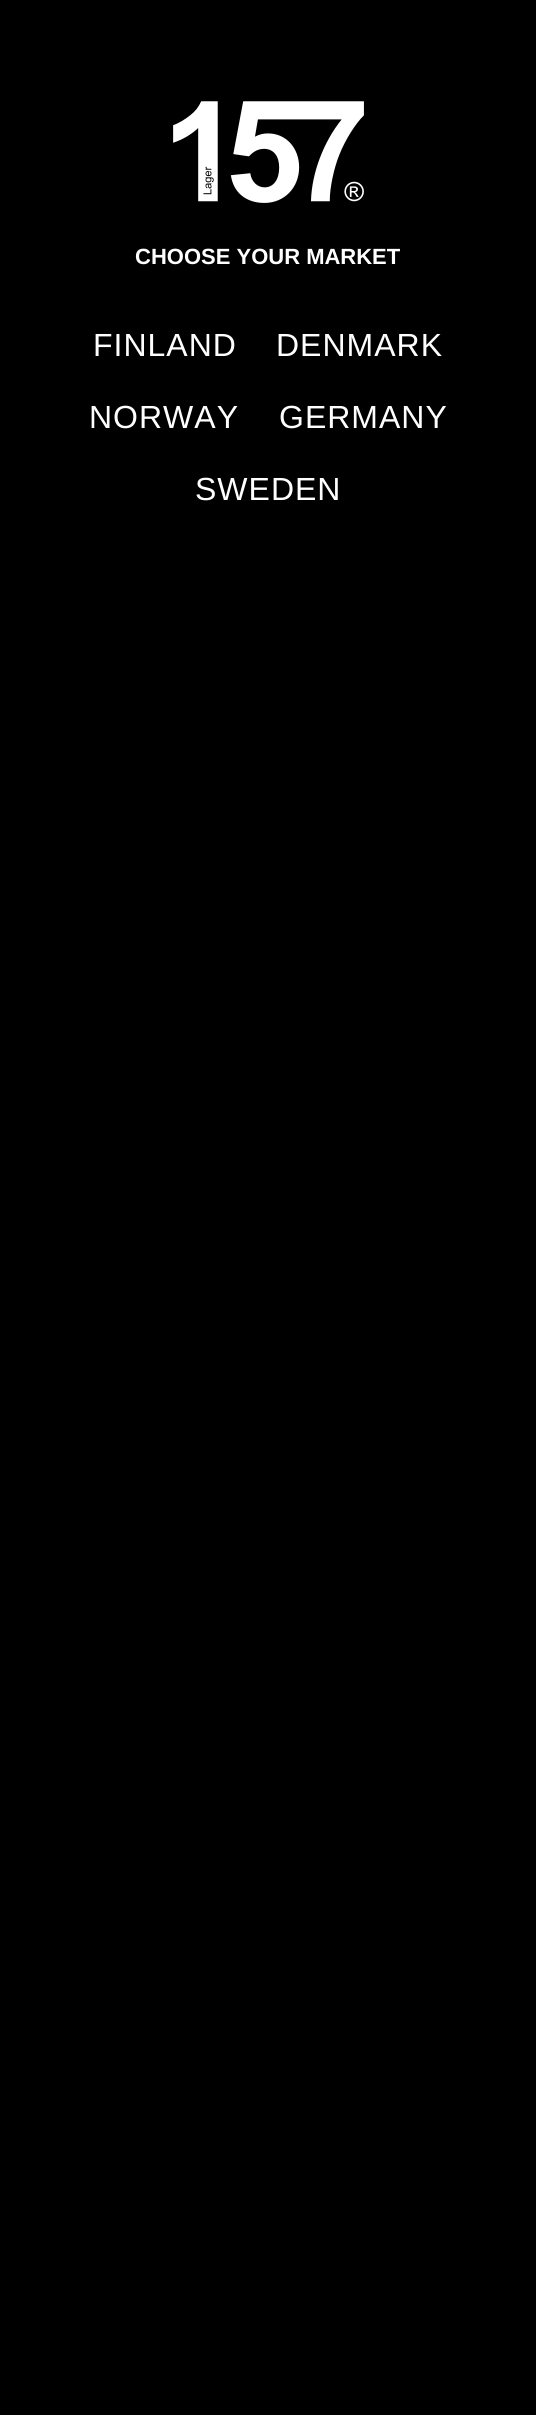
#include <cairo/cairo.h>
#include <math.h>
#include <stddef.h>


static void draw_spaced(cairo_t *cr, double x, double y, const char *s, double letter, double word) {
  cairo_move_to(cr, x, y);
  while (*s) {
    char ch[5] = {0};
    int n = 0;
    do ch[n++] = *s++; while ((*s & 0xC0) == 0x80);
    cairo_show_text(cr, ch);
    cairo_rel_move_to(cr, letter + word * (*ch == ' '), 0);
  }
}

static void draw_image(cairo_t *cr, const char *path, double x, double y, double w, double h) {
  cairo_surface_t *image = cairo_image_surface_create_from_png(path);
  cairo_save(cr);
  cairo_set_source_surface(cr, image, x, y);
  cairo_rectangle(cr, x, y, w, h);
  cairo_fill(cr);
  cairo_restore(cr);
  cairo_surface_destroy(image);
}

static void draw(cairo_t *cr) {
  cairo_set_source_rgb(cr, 0, 0, 0);
  cairo_paint(cr);
  draw_image(cr, "images/1.png", 173, 101, 191, 102);
  cairo_select_font_face(cr, "Liberation Sans", CAIRO_FONT_SLANT_NORMAL, CAIRO_FONT_WEIGHT_BOLD);
  cairo_set_font_size(cr, 22);
  cairo_set_source_rgb(cr, 1, 1, 1);
  cairo_move_to(cr, 135, 264);
  cairo_show_text(cr, "CHOOSE YOUR MARKET");
  cairo_select_font_face(cr, "Liberation Sans", CAIRO_FONT_SLANT_NORMAL, CAIRO_FONT_WEIGHT_NORMAL);
  cairo_set_font_size(cr, 32);
  draw_spaced(cr, 93, 356, "FINLAND", 1, 0);
  draw_spaced(cr, 276, 356, "DENMARK", 1, 0);
  draw_spaced(cr, 89, 428, "NORWAY", 1, 0);
  draw_spaced(cr, 279, 428, "GERMANY", 1, 0);
  draw_spaced(cr, 195, 500, "SWEDEN", 1, 0);
}

int main(void) {
  cairo_surface_t *surface = cairo_image_surface_create(CAIRO_FORMAT_RGB24, 536, 2415);
  cairo_t *cr = cairo_create(surface);
  cairo_font_options_t *options = cairo_font_options_create();
  cairo_font_options_set_hint_metrics(options, CAIRO_HINT_METRICS_OFF);
  cairo_font_options_set_hint_style(options, CAIRO_HINT_STYLE_NONE);
  cairo_set_font_options(cr, options);
  cairo_set_miter_limit(cr, 4);
  draw(cr);
  cairo_surface_write_to_png(surface, "out.png");
  cairo_font_options_destroy(options);
  cairo_destroy(cr);
  cairo_surface_destroy(surface);
  return 0;
}
